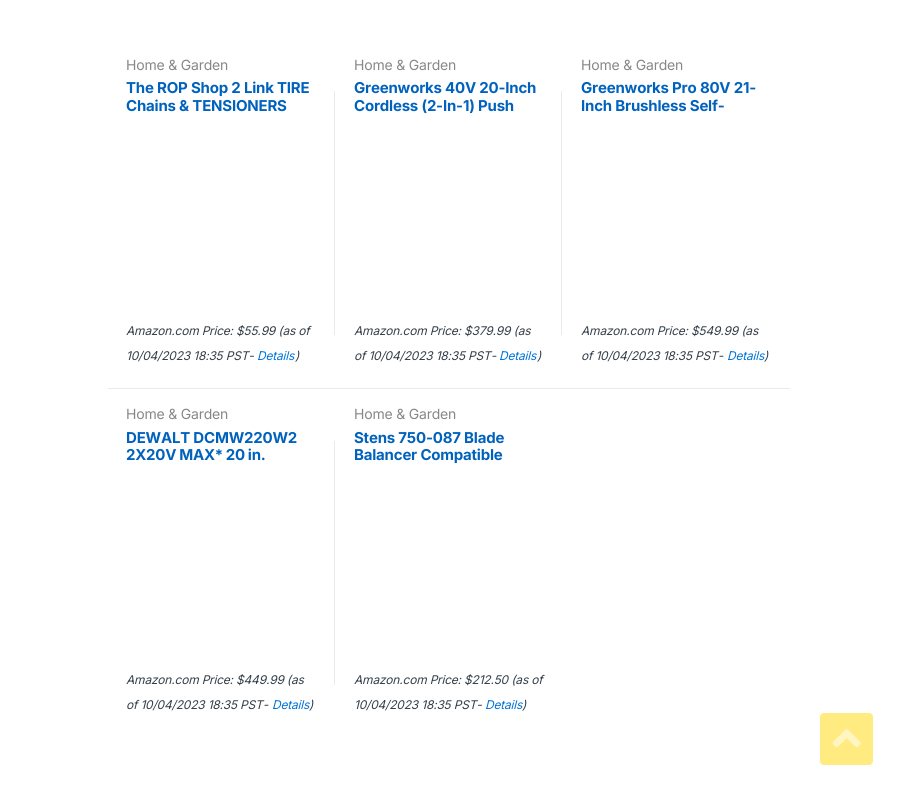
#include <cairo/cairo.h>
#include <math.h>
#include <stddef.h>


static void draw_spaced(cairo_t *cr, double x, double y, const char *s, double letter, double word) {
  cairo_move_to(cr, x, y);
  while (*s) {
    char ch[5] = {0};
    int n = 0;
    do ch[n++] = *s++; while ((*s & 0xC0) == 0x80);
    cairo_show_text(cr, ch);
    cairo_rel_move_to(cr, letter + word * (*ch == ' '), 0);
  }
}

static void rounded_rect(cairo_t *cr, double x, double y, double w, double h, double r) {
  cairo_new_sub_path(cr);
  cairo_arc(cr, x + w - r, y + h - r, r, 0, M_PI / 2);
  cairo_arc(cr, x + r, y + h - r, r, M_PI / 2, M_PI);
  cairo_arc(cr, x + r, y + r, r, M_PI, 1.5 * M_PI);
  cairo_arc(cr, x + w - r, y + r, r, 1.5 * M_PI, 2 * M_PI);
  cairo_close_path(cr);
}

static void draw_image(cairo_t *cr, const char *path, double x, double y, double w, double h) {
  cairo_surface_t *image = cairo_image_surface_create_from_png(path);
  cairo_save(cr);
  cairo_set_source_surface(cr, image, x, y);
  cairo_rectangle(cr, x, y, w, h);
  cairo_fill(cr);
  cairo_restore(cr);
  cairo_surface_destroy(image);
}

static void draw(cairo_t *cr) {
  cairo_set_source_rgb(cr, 1, 1, 1);
  cairo_paint(cr);
  cairo_set_source_rgb(cr, 234 / 255.0, 234 / 255.0, 234 / 255.0);
  cairo_rectangle(cr, 108, 388, 682, 1);
  cairo_fill(cr);
  cairo_rectangle(cr, 334, 91, 1, 244);
  cairo_fill(cr);
  cairo_rectangle(cr, 561, 91, 1, 244);
  cairo_fill(cr);
  cairo_rectangle(cr, 334, 441, 1, 244);
  cairo_fill(cr);
  cairo_set_source_rgb(cr, 1, 235 / 255.0, 128 / 255.0);
  rounded_rect(cr, 820, 713, 53, 52, 4);
  cairo_fill(cr);
  draw_image(cr, "images/1.png", 832, 729, 29, 19);
  cairo_select_font_face(cr, "Inter", CAIRO_FONT_SLANT_NORMAL, CAIRO_FONT_WEIGHT_NORMAL);
  cairo_set_font_size(cr, 14);
  cairo_set_source_rgb(cr, 135 / 255.0, 135 / 255.0, 135 / 255.0);
  draw_spaced(cr, 126, 70, "Home & Garden", -0.2, 0);
  cairo_select_font_face(cr, "Inter", CAIRO_FONT_SLANT_NORMAL, CAIRO_FONT_WEIGHT_BOLD);
  cairo_set_font_size(cr, 15);
  cairo_set_source_rgb(cr, 0, 98 / 255.0, 189 / 255.0);
  draw_spaced(cr, 126, 93, "The ROP Shop 2 Link TIRE", -0.2, 0);
  draw_spaced(cr, 126, 111, "Chains & TENSIONERS", -0.2, 0);
  cairo_select_font_face(cr, "Inter", CAIRO_FONT_SLANT_ITALIC, CAIRO_FONT_WEIGHT_NORMAL);
  cairo_set_font_size(cr, 12);
  cairo_set_source_rgb(cr, 52 / 255.0, 63 / 255.0, 73 / 255.0);
  draw_spaced(cr, 126, 335, "Amazon.com Price: $55.99 (as of", -0.2, 0);
  draw_spaced(cr, 126, 360, "10/04/2023 18:35 PST-", -0.2, 0);
  cairo_set_source_rgb(cr, 2 / 255.0, 117 / 255.0, 216 / 255.0);
  draw_spaced(cr, 257, 360, "Details", -0.2, 0);
  cairo_set_source_rgb(cr, 52 / 255.0, 63 / 255.0, 73 / 255.0);
  draw_spaced(cr, 295, 360, ")", -0.2, 0);
  cairo_select_font_face(cr, "Inter", CAIRO_FONT_SLANT_NORMAL, CAIRO_FONT_WEIGHT_NORMAL);
  cairo_set_font_size(cr, 14);
  cairo_set_source_rgb(cr, 135 / 255.0, 135 / 255.0, 135 / 255.0);
  draw_spaced(cr, 354, 70, "Home & Garden", -0.2, 0);
  cairo_select_font_face(cr, "Inter", CAIRO_FONT_SLANT_NORMAL, CAIRO_FONT_WEIGHT_BOLD);
  cairo_set_font_size(cr, 15);
  cairo_set_source_rgb(cr, 0, 98 / 255.0, 189 / 255.0);
  draw_spaced(cr, 354, 93, "Greenworks 40V 20-Inch", -0.2, 0);
  draw_spaced(cr, 354, 111, "Cordless (2-In-1) Push", -0.2, 0);
  cairo_select_font_face(cr, "Inter", CAIRO_FONT_SLANT_ITALIC, CAIRO_FONT_WEIGHT_NORMAL);
  cairo_set_font_size(cr, 12);
  cairo_set_source_rgb(cr, 52 / 255.0, 63 / 255.0, 73 / 255.0);
  draw_spaced(cr, 354, 335, "Amazon.com Price: $379.99 (as", -0.2, 0);
  draw_spaced(cr, 354, 360, "of 10/04/2023 18:35 PST-", -0.2, 0);
  cairo_set_source_rgb(cr, 2 / 255.0, 117 / 255.0, 216 / 255.0);
  draw_spaced(cr, 499, 360, "Details", -0.2, 0);
  cairo_set_source_rgb(cr, 52 / 255.0, 63 / 255.0, 73 / 255.0);
  draw_spaced(cr, 537, 360, ")", -0.2, 0);
  cairo_select_font_face(cr, "Inter", CAIRO_FONT_SLANT_NORMAL, CAIRO_FONT_WEIGHT_NORMAL);
  cairo_set_font_size(cr, 14);
  cairo_set_source_rgb(cr, 135 / 255.0, 135 / 255.0, 135 / 255.0);
  draw_spaced(cr, 581, 70, "Home & Garden", -0.2, 0);
  cairo_select_font_face(cr, "Inter", CAIRO_FONT_SLANT_NORMAL, CAIRO_FONT_WEIGHT_BOLD);
  cairo_set_font_size(cr, 15);
  cairo_set_source_rgb(cr, 0, 98 / 255.0, 189 / 255.0);
  draw_spaced(cr, 581, 93, "Greenworks Pro 80V 21-", -0.2, 0);
  draw_spaced(cr, 581, 111, "Inch Brushless Self-", -0.2, 0);
  cairo_select_font_face(cr, "Inter", CAIRO_FONT_SLANT_ITALIC, CAIRO_FONT_WEIGHT_NORMAL);
  cairo_set_font_size(cr, 12);
  cairo_set_source_rgb(cr, 52 / 255.0, 63 / 255.0, 73 / 255.0);
  draw_spaced(cr, 581, 335, "Amazon.com Price: $549.99 (as", -0.2, 0);
  draw_spaced(cr, 581, 360, "of 10/04/2023 18:35 PST-", -0.2, 0);
  cairo_set_source_rgb(cr, 2 / 255.0, 117 / 255.0, 216 / 255.0);
  draw_spaced(cr, 727, 360, "Details", -0.2, 0);
  cairo_set_source_rgb(cr, 52 / 255.0, 63 / 255.0, 73 / 255.0);
  draw_spaced(cr, 764, 360, ")", -0.2, 0);
  cairo_select_font_face(cr, "Inter", CAIRO_FONT_SLANT_NORMAL, CAIRO_FONT_WEIGHT_NORMAL);
  cairo_set_font_size(cr, 14);
  cairo_set_source_rgb(cr, 135 / 255.0, 135 / 255.0, 135 / 255.0);
  draw_spaced(cr, 126, 419, "Home & Garden", -0.2, 0);
  cairo_select_font_face(cr, "Inter", CAIRO_FONT_SLANT_NORMAL, CAIRO_FONT_WEIGHT_BOLD);
  cairo_set_font_size(cr, 15);
  cairo_set_source_rgb(cr, 0, 98 / 255.0, 189 / 255.0);
  draw_spaced(cr, 126, 443, "DEWALT DCMW220W2", -0.2, 0);
  draw_spaced(cr, 126, 460, "2X20V MAX* 20 in.", -0.2, -0.5);
  cairo_select_font_face(cr, "Inter", CAIRO_FONT_SLANT_ITALIC, CAIRO_FONT_WEIGHT_NORMAL);
  cairo_set_font_size(cr, 12);
  cairo_set_source_rgb(cr, 52 / 255.0, 63 / 255.0, 73 / 255.0);
  draw_spaced(cr, 126, 684, "Amazon.com Price: $449.99 (as", -0.2, 0);
  draw_spaced(cr, 126, 709, "of 10/04/2023 18:35 PST-", -0.2, 0);
  cairo_set_source_rgb(cr, 2 / 255.0, 117 / 255.0, 216 / 255.0);
  draw_spaced(cr, 272, 709, "Details", -0.2, 0);
  cairo_set_source_rgb(cr, 52 / 255.0, 63 / 255.0, 73 / 255.0);
  draw_spaced(cr, 309, 709, ")", -0.2, 0);
  cairo_select_font_face(cr, "Inter", CAIRO_FONT_SLANT_NORMAL, CAIRO_FONT_WEIGHT_NORMAL);
  cairo_set_font_size(cr, 14);
  cairo_set_source_rgb(cr, 135 / 255.0, 135 / 255.0, 135 / 255.0);
  draw_spaced(cr, 354, 419, "Home & Garden", -0.2, 0);
  cairo_select_font_face(cr, "Inter", CAIRO_FONT_SLANT_NORMAL, CAIRO_FONT_WEIGHT_BOLD);
  cairo_set_font_size(cr, 15);
  cairo_set_source_rgb(cr, 0, 98 / 255.0, 189 / 255.0);
  draw_spaced(cr, 354, 443, "Stens 750-087 Blade", -0.2, 0);
  draw_spaced(cr, 354, 460, "Balancer Compatible", -0.2, 0);
  cairo_select_font_face(cr, "Inter", CAIRO_FONT_SLANT_ITALIC, CAIRO_FONT_WEIGHT_NORMAL);
  cairo_set_font_size(cr, 12);
  cairo_set_source_rgb(cr, 52 / 255.0, 63 / 255.0, 73 / 255.0);
  draw_spaced(cr, 354, 684, "Amazon.com Price: $212.50 (as of", -0.2, 0);
  draw_spaced(cr, 354, 709, "10/04/2023 18:35 PST-", -0.2, 0);
  cairo_set_source_rgb(cr, 2 / 255.0, 117 / 255.0, 216 / 255.0);
  draw_spaced(cr, 485, 709, "Details", -0.2, 0);
  cairo_set_source_rgb(cr, 52 / 255.0, 63 / 255.0, 73 / 255.0);
  draw_spaced(cr, 522, 709, ")", -0.2, 0);
}

int main(void) {
  cairo_surface_t *surface = cairo_image_surface_create(CAIRO_FORMAT_RGB24, 897, 789);
  cairo_t *cr = cairo_create(surface);
  cairo_font_options_t *options = cairo_font_options_create();
  cairo_font_options_set_hint_metrics(options, CAIRO_HINT_METRICS_OFF);
  cairo_font_options_set_hint_style(options, CAIRO_HINT_STYLE_NONE);
  cairo_set_font_options(cr, options);
  cairo_set_miter_limit(cr, 4);
  draw(cr);
  cairo_surface_write_to_png(surface, "out.png");
  cairo_font_options_destroy(options);
  cairo_destroy(cr);
  cairo_surface_destroy(surface);
  return 0;
}
